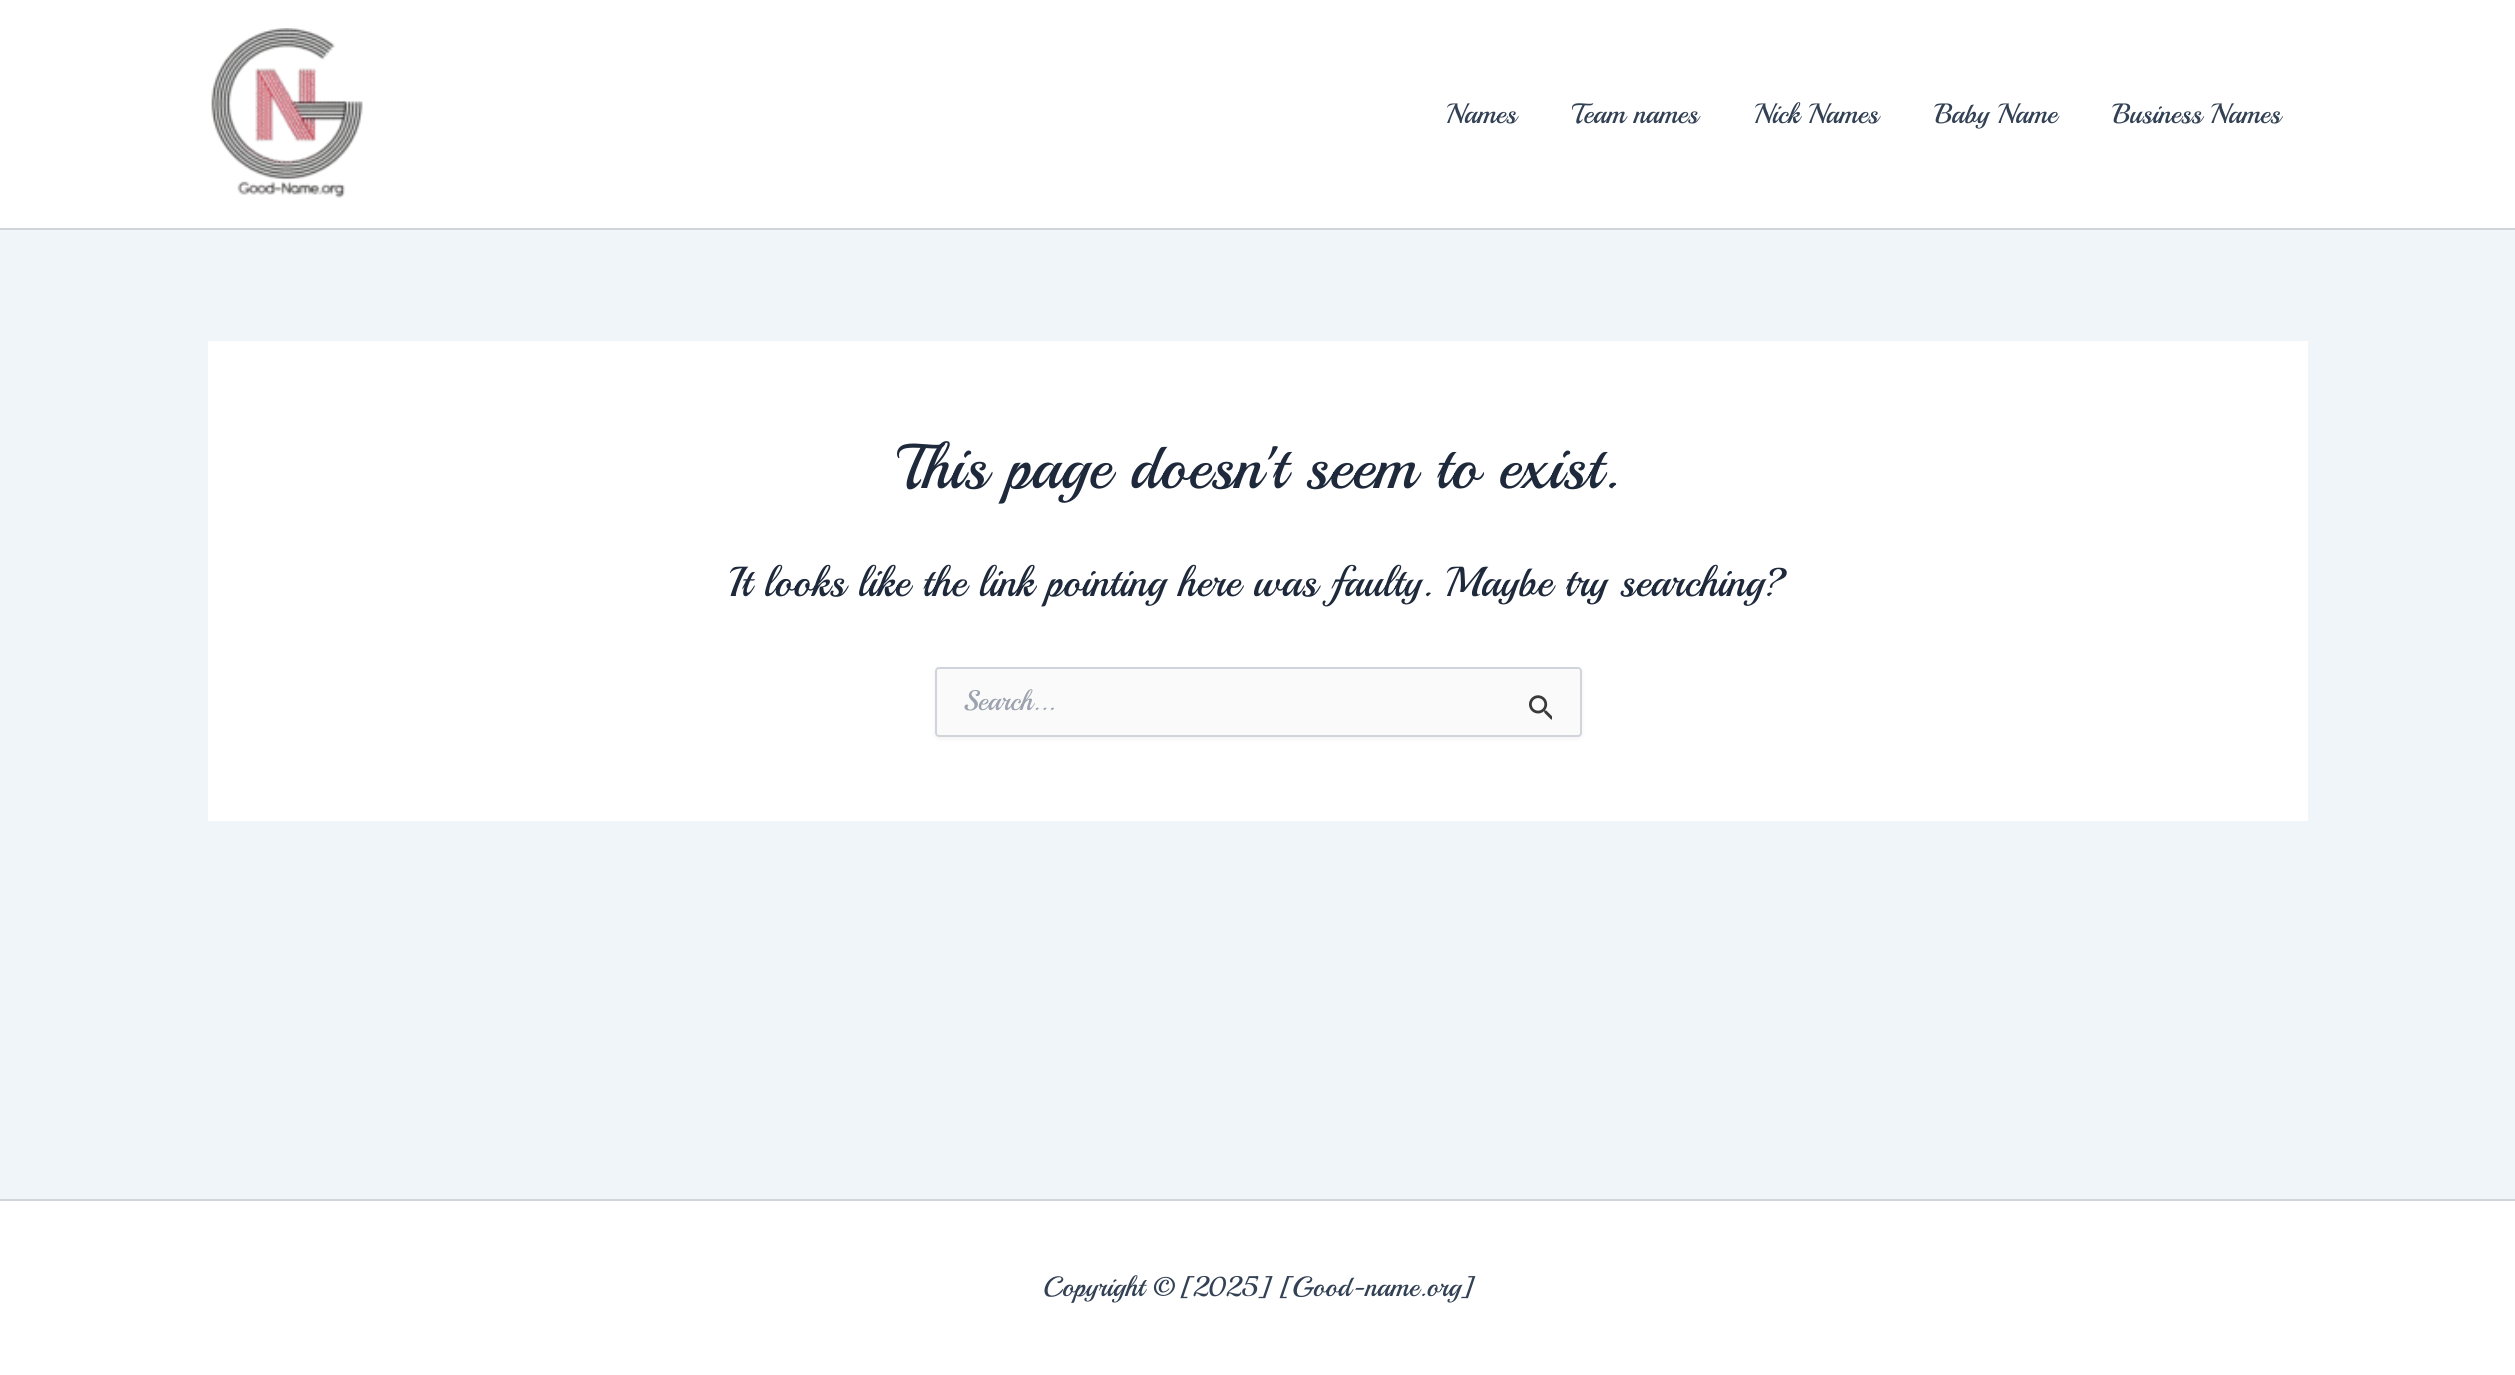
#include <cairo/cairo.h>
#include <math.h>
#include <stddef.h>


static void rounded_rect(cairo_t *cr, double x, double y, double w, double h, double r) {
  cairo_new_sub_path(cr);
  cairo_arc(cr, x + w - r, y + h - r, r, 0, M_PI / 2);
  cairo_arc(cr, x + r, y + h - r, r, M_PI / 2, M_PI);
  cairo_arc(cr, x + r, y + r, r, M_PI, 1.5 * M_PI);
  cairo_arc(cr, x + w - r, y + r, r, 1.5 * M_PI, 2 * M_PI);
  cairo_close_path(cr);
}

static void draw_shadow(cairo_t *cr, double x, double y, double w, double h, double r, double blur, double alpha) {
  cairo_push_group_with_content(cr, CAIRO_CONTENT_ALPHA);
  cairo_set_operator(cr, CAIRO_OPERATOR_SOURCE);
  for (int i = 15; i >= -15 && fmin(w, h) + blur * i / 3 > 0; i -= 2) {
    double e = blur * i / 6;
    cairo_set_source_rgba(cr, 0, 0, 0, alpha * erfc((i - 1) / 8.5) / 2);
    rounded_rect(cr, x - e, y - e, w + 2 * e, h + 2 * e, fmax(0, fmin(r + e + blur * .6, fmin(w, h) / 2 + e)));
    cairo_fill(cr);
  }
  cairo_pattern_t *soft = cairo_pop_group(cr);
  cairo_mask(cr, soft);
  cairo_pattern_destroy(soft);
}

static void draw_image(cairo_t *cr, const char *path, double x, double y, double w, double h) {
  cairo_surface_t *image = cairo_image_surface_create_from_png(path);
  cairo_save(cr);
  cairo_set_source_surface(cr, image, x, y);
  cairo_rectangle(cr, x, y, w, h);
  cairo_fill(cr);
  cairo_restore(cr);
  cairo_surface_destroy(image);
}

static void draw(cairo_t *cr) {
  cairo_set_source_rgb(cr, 240 / 255.0, 245 / 255.0, 250 / 255.0);
  cairo_paint(cr);
  cairo_set_source_rgb(cr, 1, 1, 1);
  cairo_rectangle(cr, 0, 0, 2515, 228);
  cairo_fill(cr);
  cairo_set_source_rgb(cr, 209 / 255.0, 213 / 255.0, 219 / 255.0);
  cairo_rectangle(cr, 0, 228, 2515, 2);
  cairo_fill(cr);
  draw_image(cr, "images/1.png", 211, 28, 152, 170);
  cairo_set_source_rgb(cr, 1, 1, 1);
  cairo_rectangle(cr, 208, 341, 2100, 480);
  cairo_fill(cr);
  cairo_set_source_rgb(cr, 0, 0, 0);
  draw_shadow(cr, 935, 669, 647, 70, 4, 2, 0.05);
  cairo_set_source_rgb(cr, 250 / 255.0, 250 / 255.0, 250 / 255.0);
  rounded_rect(cr, 936, 668, 645, 68, 3);
  cairo_fill_preserve(cr);
  cairo_set_source_rgb(cr, 209 / 255.0, 213 / 255.0, 219 / 255.0);
  cairo_stroke(cr);
  draw_image(cr, "images/2.png", 1529, 695, 23, 25);
  cairo_set_source_rgb(cr, 1, 1, 1);
  cairo_rectangle(cr, 0, 1201, 2515, 174);
  cairo_fill(cr);
  cairo_set_source_rgb(cr, 209 / 255.0, 213 / 255.0, 219 / 255.0);
  cairo_rectangle(cr, 0, 1199, 2515, 2);
  cairo_fill(cr);
  cairo_select_font_face(cr, "Playball", CAIRO_FONT_SLANT_NORMAL, CAIRO_FONT_WEIGHT_NORMAL);
  cairo_set_font_size(cr, 28);
  cairo_set_source_rgb(cr, 51 / 255.0, 65 / 255.0, 85 / 255.0);
  cairo_move_to(cr, 1446, 123);
  cairo_show_text(cr, "Names");
  cairo_move_to(cr, 1572, 123);
  cairo_show_text(cr, "Team names");
  cairo_move_to(cr, 1754, 123);
  cairo_show_text(cr, "Nick Names");
  cairo_move_to(cr, 1935, 123);
  cairo_show_text(cr, "Baby Name");
  cairo_move_to(cr, 2113, 123);
  cairo_show_text(cr, "Business Names");
  cairo_set_font_size(cr, 63);
  cairo_set_source_rgb(cr, 30 / 255.0, 41 / 255.0, 59 / 255.0);
  cairo_move_to(cr, 897, 488);
  cairo_show_text(cr, "This page doesn't seem to exist.");
  cairo_set_font_size(cr, 42);
  cairo_move_to(cr, 729, 596);
  cairo_show_text(cr, "It looks like the link pointing here was faulty. Maybe try searching?");
  cairo_set_font_size(cr, 28);
  cairo_set_source_rgb(cr, 156 / 255.0, 163 / 255.0, 175 / 255.0);
  cairo_move_to(cr, 963, 710);
  cairo_show_text(cr, "Search...");
  cairo_set_source_rgb(cr, 51 / 255.0, 65 / 255.0, 85 / 255.0);
  cairo_move_to(cr, 1043, 1296);
  cairo_show_text(cr, "Copyright © [2025] [Good-name.org]");
}

int main(void) {
  cairo_surface_t *surface = cairo_image_surface_create(CAIRO_FORMAT_RGB24, 2515, 1375);
  cairo_t *cr = cairo_create(surface);
  cairo_font_options_t *options = cairo_font_options_create();
  cairo_font_options_set_hint_metrics(options, CAIRO_HINT_METRICS_OFF);
  cairo_font_options_set_hint_style(options, CAIRO_HINT_STYLE_NONE);
  cairo_set_font_options(cr, options);
  cairo_set_miter_limit(cr, 4);
  draw(cr);
  cairo_surface_write_to_png(surface, "out.png");
  cairo_font_options_destroy(options);
  cairo_destroy(cr);
  cairo_surface_destroy(surface);
  return 0;
}
